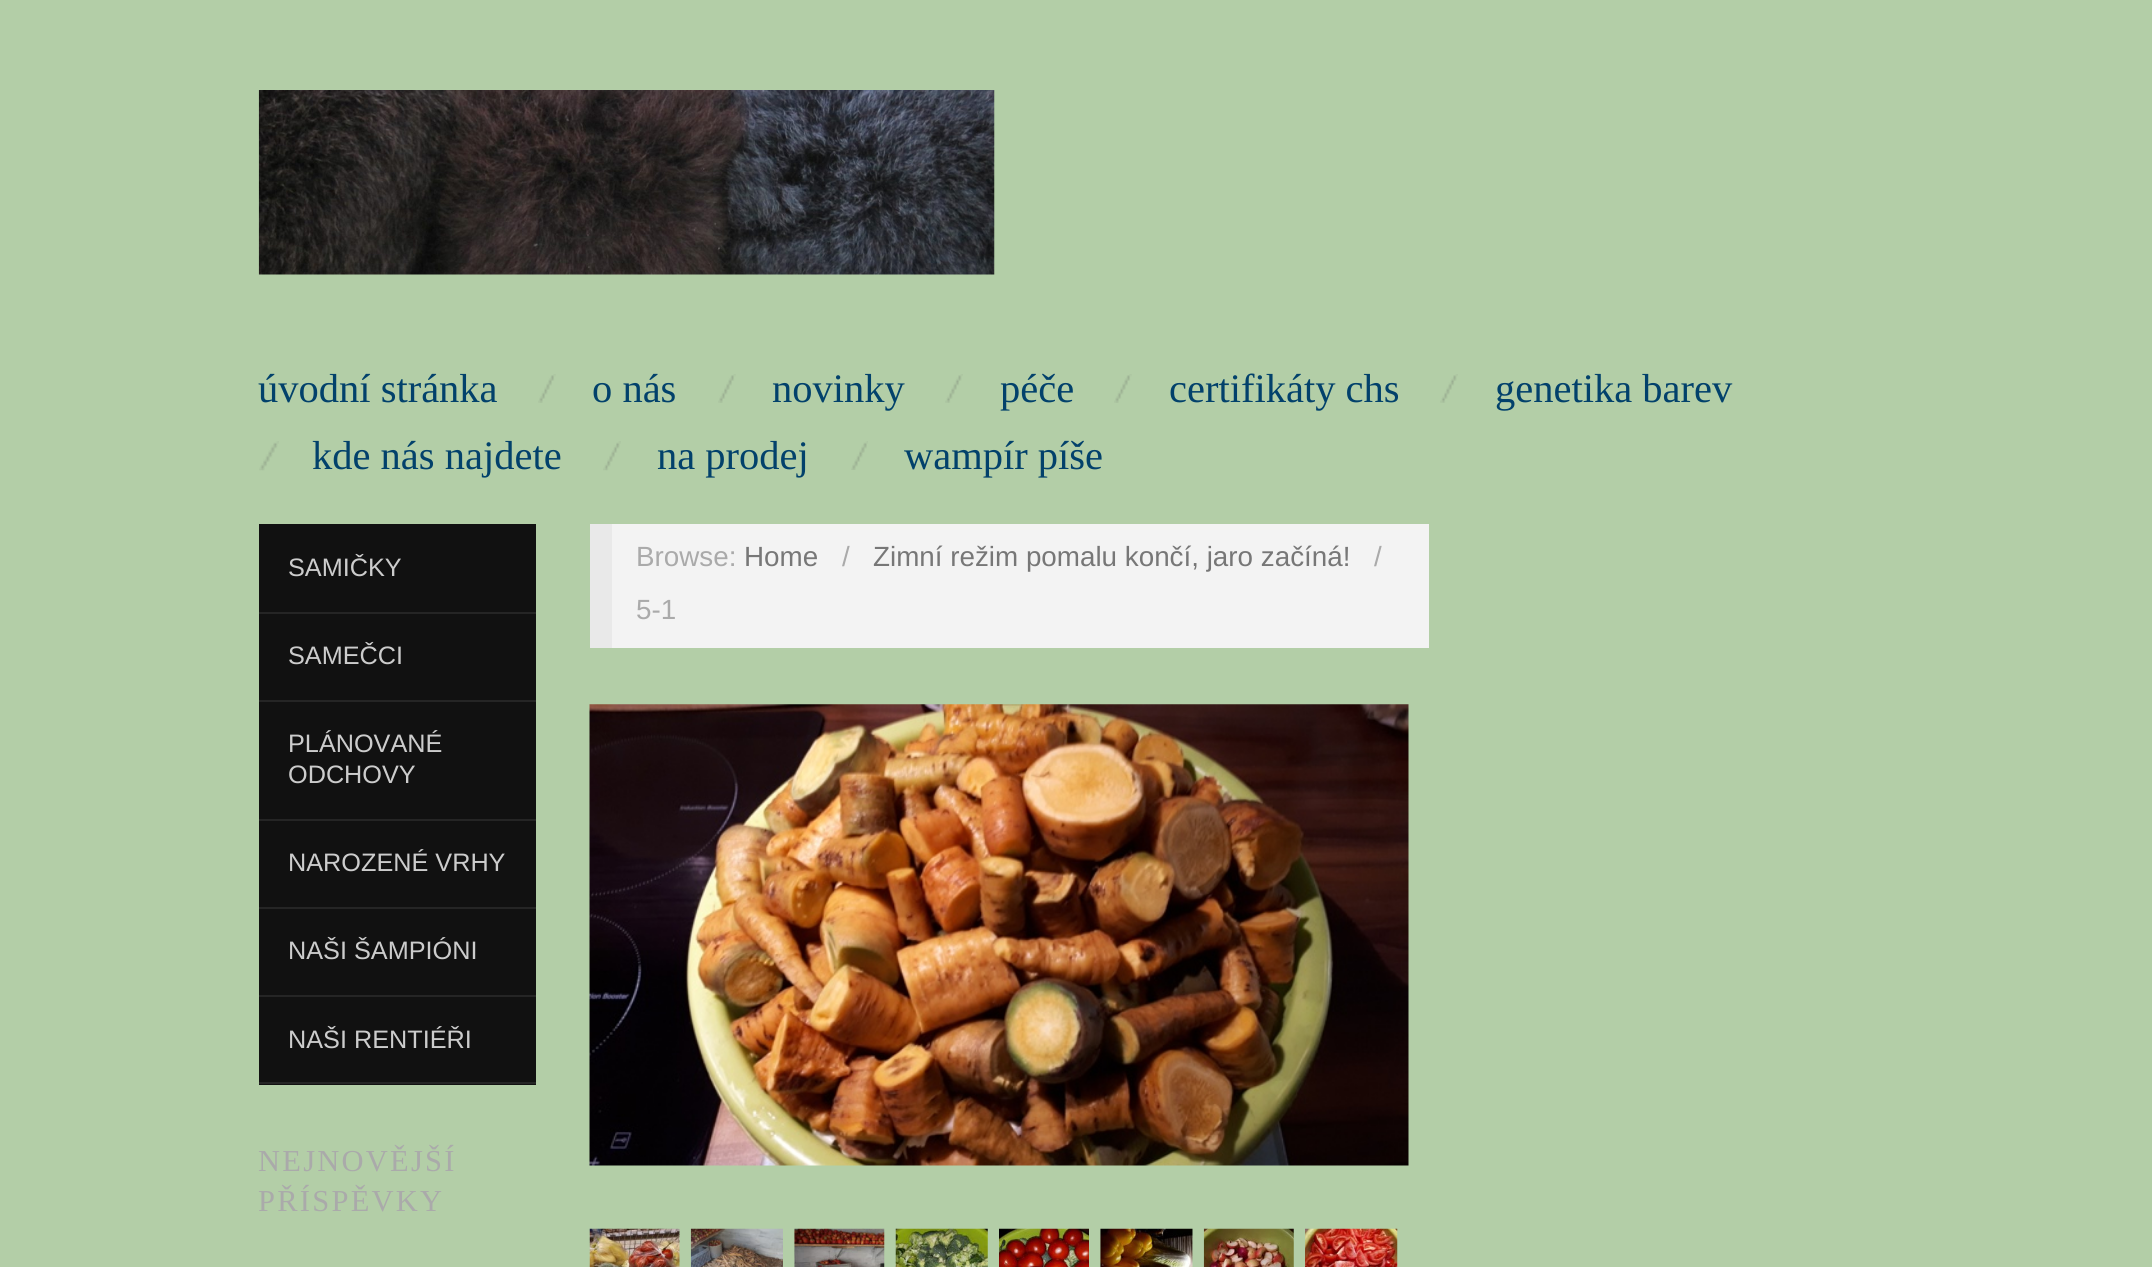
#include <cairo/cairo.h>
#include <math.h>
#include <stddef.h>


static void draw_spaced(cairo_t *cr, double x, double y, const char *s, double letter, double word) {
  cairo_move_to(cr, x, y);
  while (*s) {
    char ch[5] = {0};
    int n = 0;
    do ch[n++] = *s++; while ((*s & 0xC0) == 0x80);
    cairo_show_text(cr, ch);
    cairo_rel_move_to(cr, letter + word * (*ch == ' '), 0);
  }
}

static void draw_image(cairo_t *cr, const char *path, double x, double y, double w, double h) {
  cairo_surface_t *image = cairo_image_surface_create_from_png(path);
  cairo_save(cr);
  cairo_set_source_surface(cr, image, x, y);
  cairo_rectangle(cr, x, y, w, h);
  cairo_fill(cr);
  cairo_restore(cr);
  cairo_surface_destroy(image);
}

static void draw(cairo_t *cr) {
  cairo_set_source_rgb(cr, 179 / 255.0, 206 / 255.0, 167 / 255.0);
  cairo_paint(cr);
  draw_image(cr, "images/1.png", 258, 90, 737, 185);
  draw_image(cr, "images/2.png", 538, 374, 18, 29);
  draw_image(cr, "images/3.png", 718, 374, 18, 29);
  draw_image(cr, "images/4.png", 945, 374, 18, 29);
  draw_image(cr, "images/2.png", 1114, 374, 18, 29);
  draw_image(cr, "images/4.png", 1440, 374, 18, 29);
  draw_image(cr, "images/5.png", 259, 441, 20, 30);
  draw_image(cr, "images/6.png", 603, 441, 18, 30);
  draw_image(cr, "images/7.png", 851, 441, 17, 29);
  cairo_set_source_rgb(cr, 17 / 255.0, 17 / 255.0, 17 / 255.0);
  cairo_rectangle(cr, 259, 524, 277, 561);
  cairo_fill(cr);
  cairo_set_source_rgb(cr, 37 / 255.0, 37 / 255.0, 37 / 255.0);
  cairo_rectangle(cr, 259, 612, 277, 2);
  cairo_fill(cr);
  cairo_rectangle(cr, 259, 700, 277, 2);
  cairo_fill(cr);
  cairo_rectangle(cr, 259, 819, 277, 2);
  cairo_fill(cr);
  cairo_rectangle(cr, 259, 907, 277, 2);
  cairo_fill(cr);
  cairo_rectangle(cr, 259, 995, 277, 2);
  cairo_fill(cr);
  cairo_rectangle(cr, 259, 1082, 277, 2);
  cairo_fill(cr);
  cairo_set_source_rgb(cr, 243 / 255.0, 243 / 255.0, 243 / 255.0);
  cairo_rectangle(cr, 612, 524, 817, 124);
  cairo_fill(cr);
  cairo_set_source_rgb(cr, 233 / 255.0, 233 / 255.0, 233 / 255.0);
  cairo_rectangle(cr, 590, 524, 22, 124);
  cairo_fill(cr);
  draw_image(cr, "images/8.png", 589, 704, 820, 462);
  draw_image(cr, "images/9.png", 589, 1228, 91, 39);
  draw_image(cr, "images/10.png", 690, 1228, 93, 39);
  draw_image(cr, "images/11.png", 794, 1228, 91, 39);
  draw_image(cr, "images/12.png", 895, 1228, 93, 39);
  draw_image(cr, "images/13.png", 999, 1228, 90, 39);
  draw_image(cr, "images/14.png", 1100, 1228, 93, 39);
  draw_image(cr, "images/15.png", 1203, 1228, 91, 39);
  draw_image(cr, "images/16.png", 1305, 1228, 93, 39);
  cairo_select_font_face(cr, "Liberation Serif", CAIRO_FONT_SLANT_NORMAL, CAIRO_FONT_WEIGHT_NORMAL);
  cairo_set_font_size(cr, 40.5);
  cairo_set_source_rgb(cr, 2 / 255.0, 65 / 255.0, 107 / 255.0);
  cairo_move_to(cr, 258, 402);
  cairo_show_text(cr, "úvodní stránka");
  cairo_move_to(cr, 592, 402);
  cairo_show_text(cr, "o nás");
  cairo_move_to(cr, 772, 402);
  cairo_show_text(cr, "novinky");
  cairo_move_to(cr, 1000, 402);
  cairo_show_text(cr, "péče");
  cairo_move_to(cr, 1169, 402);
  cairo_show_text(cr, "certifikáty chs");
  cairo_move_to(cr, 1495, 402);
  cairo_show_text(cr, "genetika barev");
  cairo_move_to(cr, 312, 469);
  cairo_show_text(cr, "kde nás najdete");
  cairo_move_to(cr, 657, 469);
  cairo_show_text(cr, "na prodej");
  cairo_move_to(cr, 904, 469);
  cairo_show_text(cr, "wampír píše");
  cairo_select_font_face(cr, "Liberation Sans", CAIRO_FONT_SLANT_NORMAL, CAIRO_FONT_WEIGHT_NORMAL);
  cairo_set_font_size(cr, 25.25);
  cairo_set_source_rgb(cr, 204 / 255.0, 204 / 255.0, 204 / 255.0);
  cairo_move_to(cr, 288, 576);
  cairo_show_text(cr, "SAMIČKY");
  cairo_move_to(cr, 288, 664);
  cairo_show_text(cr, "SAMEČCI");
  cairo_move_to(cr, 288, 752);
  cairo_show_text(cr, "PLÁNOVANÉ");
  cairo_move_to(cr, 288, 783);
  cairo_show_text(cr, "ODCHOVY");
  cairo_move_to(cr, 288, 871);
  cairo_show_text(cr, "NAROZENÉ VRHY");
  cairo_move_to(cr, 288, 959);
  cairo_show_text(cr, "NAŠI ŠAMPIÓNI");
  cairo_move_to(cr, 288, 1048);
  cairo_show_text(cr, "NAŠI RENTIÉŘI");
  cairo_select_font_face(cr, "Liberation Serif", CAIRO_FONT_SLANT_NORMAL, CAIRO_FONT_WEIGHT_NORMAL);
  cairo_set_font_size(cr, 30.5);
  cairo_set_source_rgb(cr, 170 / 255.0, 170 / 255.0, 170 / 255.0);
  draw_spaced(cr, 258, 1171, "NEJNOVĚJŠÍ", 2.25, 0);
  draw_spaced(cr, 258, 1211, "PŘÍSPĚVKY", 2.25, 0);
  cairo_select_font_face(cr, "Liberation Sans", CAIRO_FONT_SLANT_NORMAL, CAIRO_FONT_WEIGHT_NORMAL);
  cairo_set_font_size(cr, 27.8);
  cairo_move_to(cr, 636, 566);
  cairo_show_text(cr, "Browse:");
  cairo_set_source_rgb(cr, 119 / 255.0, 119 / 255.0, 119 / 255.0);
  cairo_move_to(cr, 744, 566);
  cairo_show_text(cr, "Home");
  cairo_set_source_rgb(cr, 170 / 255.0, 170 / 255.0, 170 / 255.0);
  cairo_move_to(cr, 842, 566);
  cairo_show_text(cr, "/");
  cairo_set_source_rgb(cr, 119 / 255.0, 119 / 255.0, 119 / 255.0);
  cairo_move_to(cr, 873, 566);
  cairo_show_text(cr, "Zimní režim pomalu končí, jaro začíná!");
  cairo_set_source_rgb(cr, 170 / 255.0, 170 / 255.0, 170 / 255.0);
  cairo_move_to(cr, 1374, 566);
  cairo_show_text(cr, "/");
  cairo_move_to(cr, 636, 619);
  cairo_show_text(cr, "5-1");
}

int main(void) {
  cairo_surface_t *surface = cairo_image_surface_create(CAIRO_FORMAT_RGB24, 2152, 1267);
  cairo_t *cr = cairo_create(surface);
  cairo_font_options_t *options = cairo_font_options_create();
  cairo_font_options_set_hint_metrics(options, CAIRO_HINT_METRICS_OFF);
  cairo_font_options_set_hint_style(options, CAIRO_HINT_STYLE_NONE);
  cairo_set_font_options(cr, options);
  cairo_set_miter_limit(cr, 4);
  draw(cr);
  cairo_surface_write_to_png(surface, "out.png");
  cairo_font_options_destroy(options);
  cairo_destroy(cr);
  cairo_surface_destroy(surface);
  return 0;
}
